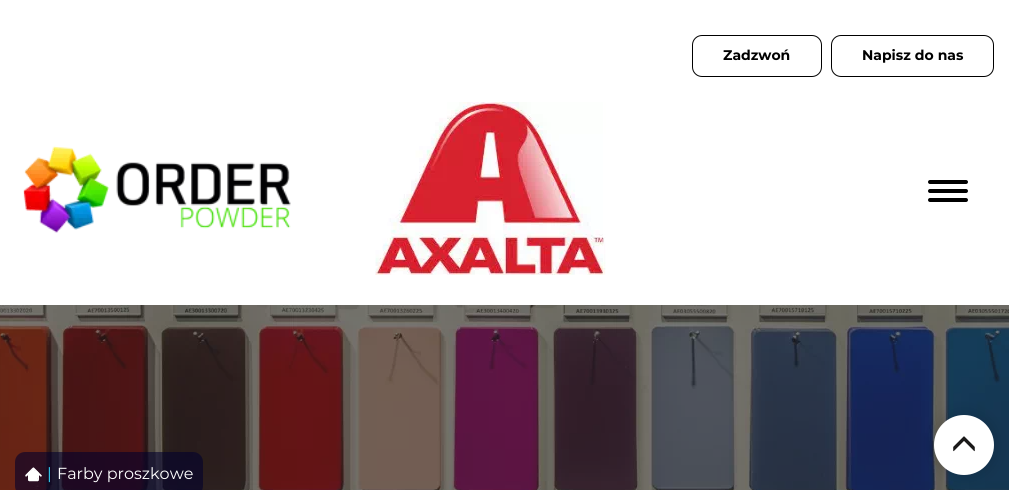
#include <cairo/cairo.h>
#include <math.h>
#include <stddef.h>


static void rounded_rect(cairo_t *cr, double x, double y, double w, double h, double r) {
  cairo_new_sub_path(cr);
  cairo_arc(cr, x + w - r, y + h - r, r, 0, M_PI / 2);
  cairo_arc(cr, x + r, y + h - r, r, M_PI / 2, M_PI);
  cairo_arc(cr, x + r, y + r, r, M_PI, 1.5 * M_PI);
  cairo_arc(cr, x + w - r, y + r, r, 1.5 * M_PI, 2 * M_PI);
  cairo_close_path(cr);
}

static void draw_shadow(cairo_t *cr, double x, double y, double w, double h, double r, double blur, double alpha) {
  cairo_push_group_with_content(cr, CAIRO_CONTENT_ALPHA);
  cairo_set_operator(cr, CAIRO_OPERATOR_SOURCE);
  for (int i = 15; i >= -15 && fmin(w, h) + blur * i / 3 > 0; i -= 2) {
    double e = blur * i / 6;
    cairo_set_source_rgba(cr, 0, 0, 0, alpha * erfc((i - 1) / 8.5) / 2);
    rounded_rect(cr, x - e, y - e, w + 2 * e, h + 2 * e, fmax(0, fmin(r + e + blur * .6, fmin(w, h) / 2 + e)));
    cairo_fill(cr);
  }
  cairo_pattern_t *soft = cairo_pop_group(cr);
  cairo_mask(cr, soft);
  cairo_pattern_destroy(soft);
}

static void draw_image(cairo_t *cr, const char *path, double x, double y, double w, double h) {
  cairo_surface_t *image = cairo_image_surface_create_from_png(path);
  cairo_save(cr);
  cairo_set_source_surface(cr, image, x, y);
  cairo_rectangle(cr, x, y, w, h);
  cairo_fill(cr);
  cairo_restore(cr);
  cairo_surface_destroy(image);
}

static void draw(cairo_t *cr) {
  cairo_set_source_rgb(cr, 1, 1, 1);
  cairo_paint(cr);
  rounded_rect(cr, 692.5, 35.5, 129, 41, 9.5);
  cairo_set_source_rgb(cr, 0, 0, 0);
  cairo_set_line_width(cr, 1);
  cairo_stroke(cr);
  rounded_rect(cr, 831.5, 35.5, 162, 41, 9.5);
  cairo_stroke(cr);
  draw_image(cr, "images/1.png", 23, 102, 583, 173);
  rounded_rect(cr, 928, 180, 40, 4, 2);
  cairo_fill(cr);
  rounded_rect(cr, 928, 189, 40, 4, 2);
  cairo_fill(cr);
  rounded_rect(cr, 928, 198, 40, 4, 2);
  cairo_fill(cr);
  draw_image(cr, "images/2.png", 0, 305, 1009, 185);
  cairo_set_source_rgba(cr, 3 / 255.0, 0, 44 / 255.0, 0.6);
  rounded_rect(cr, 15, 452, 188, 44, 10);
  cairo_fill(cr);
  draw_image(cr, "images/3.png", 25, 467, 17, 15);
  cairo_set_source_rgb(cr, 0, 0, 0);
  draw_shadow(cr, 933, 414, 62, 62, 31, 8, 0.15);
  cairo_set_source_rgb(cr, 1, 1, 1);
  cairo_arc(cr, 964, 445, 30, 0, 2 * M_PI);
  cairo_fill(cr);
  draw_image(cr, "images/4.png", 953, 436, 22, 16);
  cairo_select_font_face(cr, "Montserrat", CAIRO_FONT_SLANT_NORMAL, CAIRO_FONT_WEIGHT_BOLD);
  cairo_set_font_size(cr, 14);
  cairo_set_source_rgb(cr, 0, 0, 0);
  cairo_move_to(cr, 723, 60);
  cairo_show_text(cr, "Zadzwoń");
  cairo_move_to(cr, 862, 60);
  cairo_show_text(cr, "Napisz do nas");
  cairo_select_font_face(cr, "Montserrat", CAIRO_FONT_SLANT_NORMAL, CAIRO_FONT_WEIGHT_NORMAL);
  cairo_set_font_size(cr, 16);
  cairo_set_source_rgb(cr, 53 / 255.0, 215 / 255.0, 251 / 255.0);
  cairo_move_to(cr, 47, 479);
  cairo_show_text(cr, "|");
  cairo_set_source_rgb(cr, 1, 1, 1);
  cairo_move_to(cr, 57, 479);
  cairo_show_text(cr, "Farby proszkowe");
}

int main(void) {
  cairo_surface_t *surface = cairo_image_surface_create(CAIRO_FORMAT_RGB24, 1009, 490);
  cairo_t *cr = cairo_create(surface);
  cairo_font_options_t *options = cairo_font_options_create();
  cairo_font_options_set_hint_metrics(options, CAIRO_HINT_METRICS_OFF);
  cairo_font_options_set_hint_style(options, CAIRO_HINT_STYLE_NONE);
  cairo_set_font_options(cr, options);
  cairo_set_miter_limit(cr, 4);
  draw(cr);
  cairo_surface_write_to_png(surface, "out.png");
  cairo_font_options_destroy(options);
  cairo_destroy(cr);
  cairo_surface_destroy(surface);
  return 0;
}
